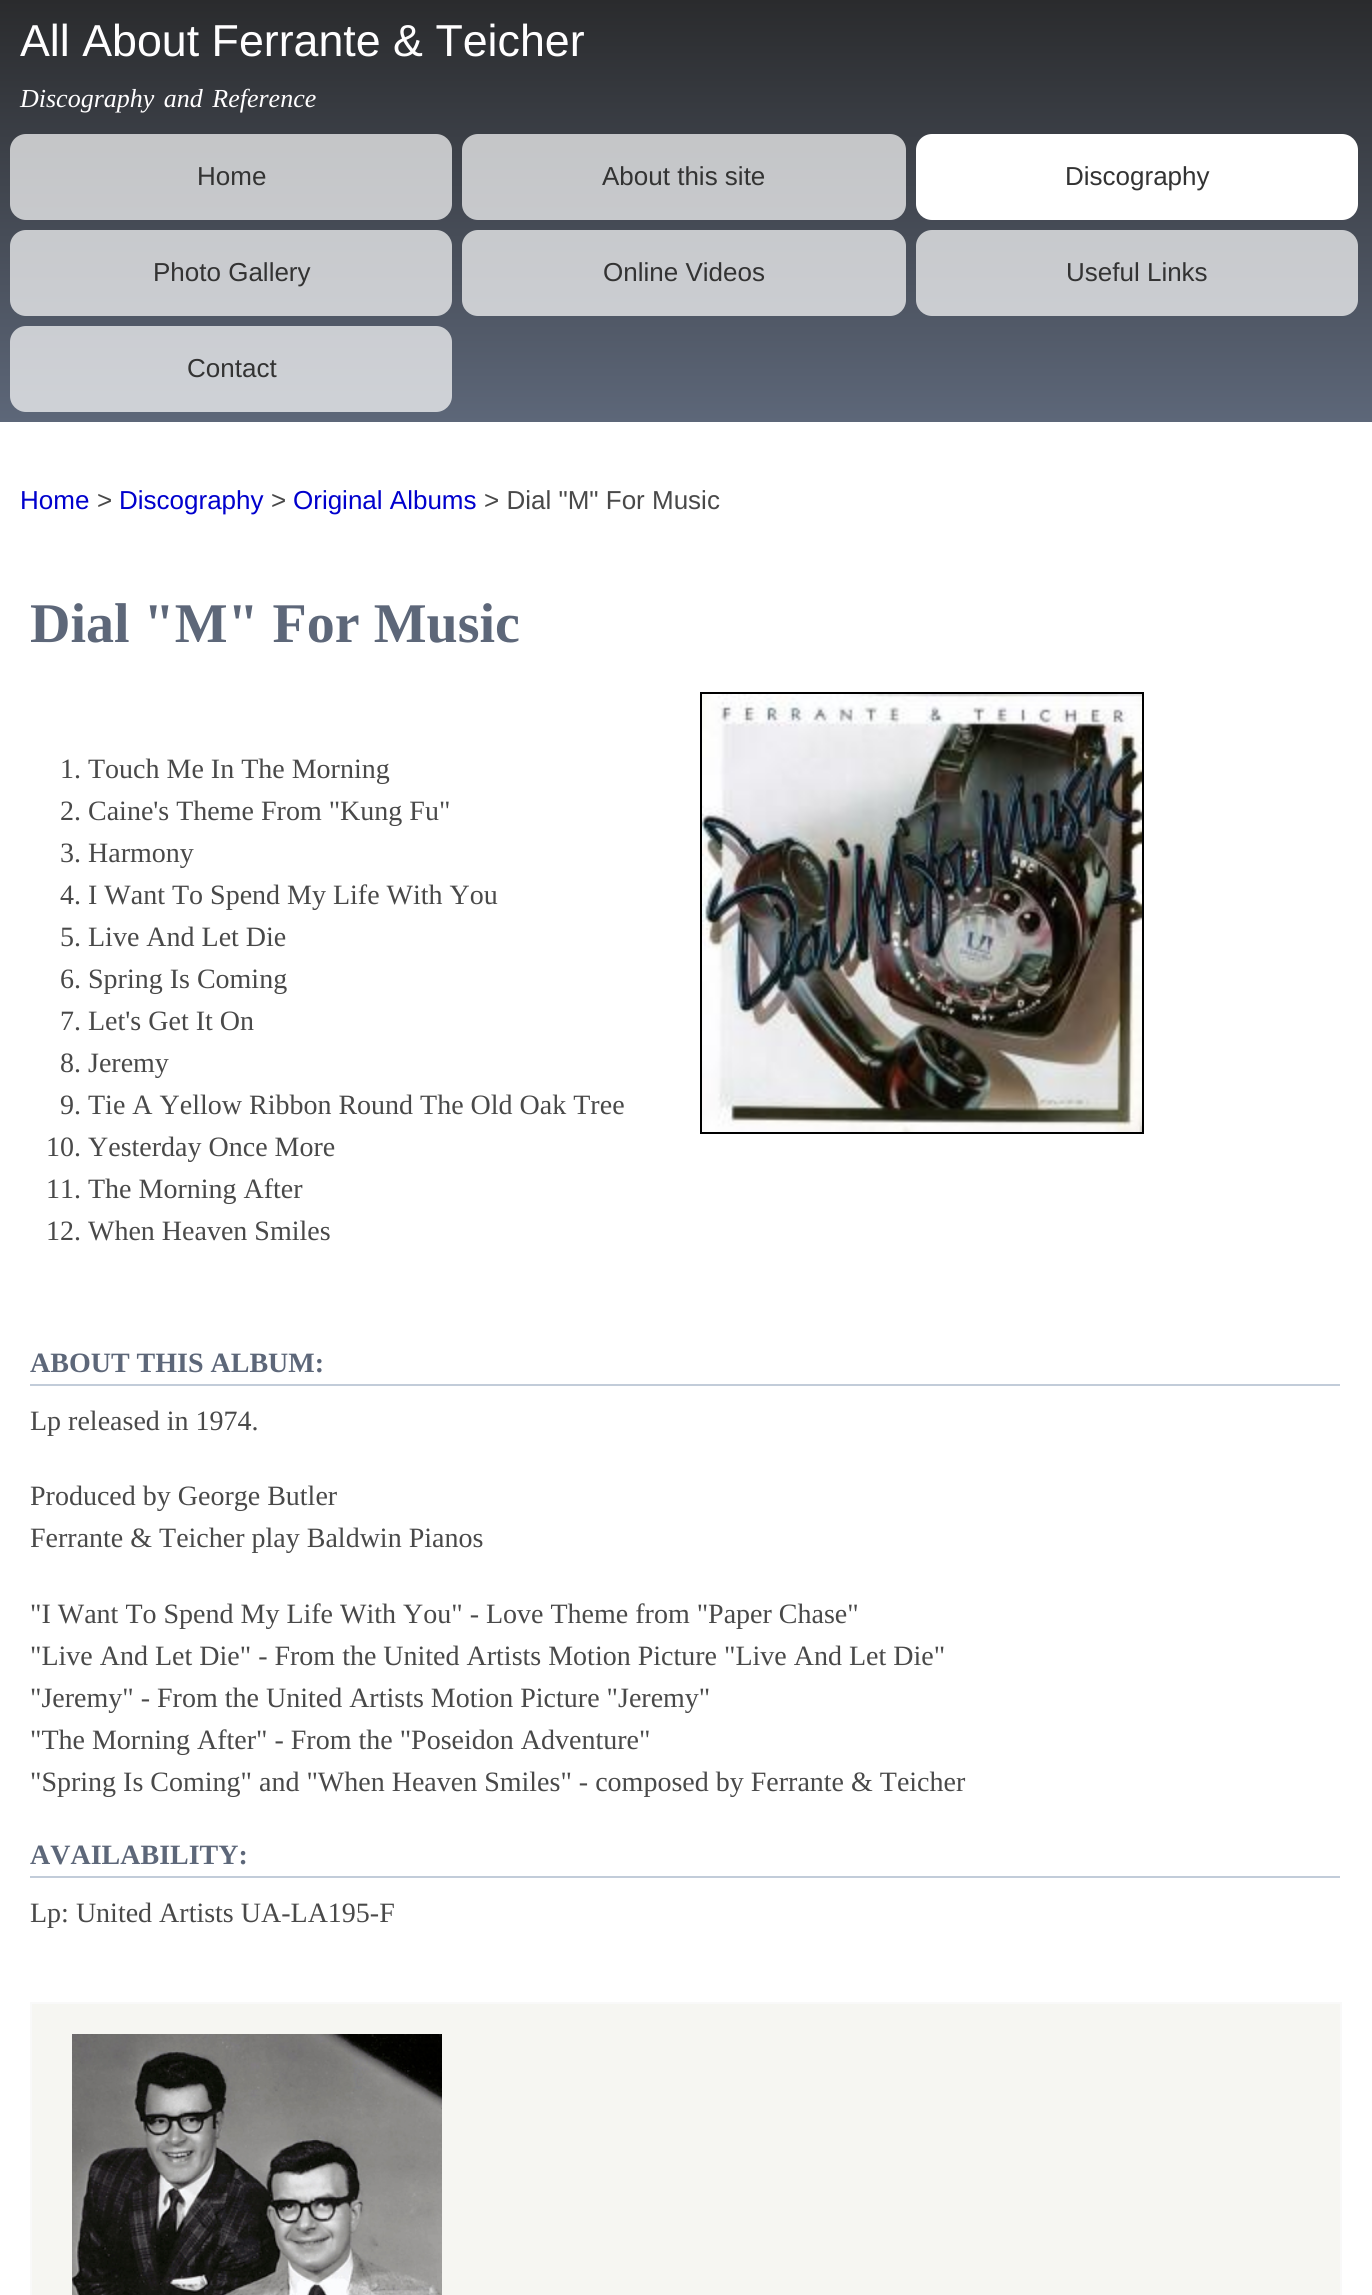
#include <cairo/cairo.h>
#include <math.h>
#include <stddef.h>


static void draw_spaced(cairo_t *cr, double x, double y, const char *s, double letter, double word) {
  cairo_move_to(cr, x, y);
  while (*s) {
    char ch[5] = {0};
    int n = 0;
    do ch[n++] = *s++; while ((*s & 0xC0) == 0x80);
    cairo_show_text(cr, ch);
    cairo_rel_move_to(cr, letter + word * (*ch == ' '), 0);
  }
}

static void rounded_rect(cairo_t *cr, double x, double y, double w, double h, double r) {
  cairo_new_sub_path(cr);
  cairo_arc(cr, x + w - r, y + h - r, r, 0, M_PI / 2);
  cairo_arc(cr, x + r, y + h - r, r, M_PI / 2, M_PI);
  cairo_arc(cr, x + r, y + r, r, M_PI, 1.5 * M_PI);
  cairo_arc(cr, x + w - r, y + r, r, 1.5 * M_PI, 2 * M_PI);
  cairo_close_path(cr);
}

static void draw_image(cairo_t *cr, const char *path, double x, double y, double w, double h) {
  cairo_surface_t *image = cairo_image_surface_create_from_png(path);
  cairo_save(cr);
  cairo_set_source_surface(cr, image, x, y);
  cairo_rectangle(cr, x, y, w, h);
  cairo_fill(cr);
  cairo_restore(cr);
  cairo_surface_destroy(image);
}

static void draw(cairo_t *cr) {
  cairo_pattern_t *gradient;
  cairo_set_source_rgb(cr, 1, 1, 1);
  cairo_paint(cr);
  gradient = cairo_pattern_create_linear(686, 0, 686, 422);
  cairo_pattern_add_color_stop_rgba(gradient, 0, 42 / 255.0, 43 / 255.0, 45 / 255.0, 1);
  cairo_pattern_add_color_stop_rgba(gradient, 1, 93 / 255.0, 103 / 255.0, 121 / 255.0, 1);
  cairo_set_source(cr, gradient);
  cairo_pattern_destroy(gradient);
  cairo_rectangle(cr, 0, 0, 1372, 422);
  cairo_fill(cr);
  cairo_set_source_rgba(cr, 1, 1, 1, 0.7);
  rounded_rect(cr, 10, 134, 442, 86, 16);
  cairo_fill(cr);
  rounded_rect(cr, 462, 134, 444, 86, 16);
  cairo_fill(cr);
  cairo_set_source_rgb(cr, 1, 1, 1);
  rounded_rect(cr, 916, 134, 442, 86, 16);
  cairo_fill(cr);
  cairo_set_source_rgba(cr, 1, 1, 1, 0.7);
  rounded_rect(cr, 10, 230, 442, 86, 16);
  cairo_fill(cr);
  rounded_rect(cr, 462, 230, 444, 86, 16);
  cairo_fill(cr);
  rounded_rect(cr, 916, 230, 442, 86, 16);
  cairo_fill(cr);
  rounded_rect(cr, 10, 326, 442, 86, 16);
  cairo_fill(cr);
  cairo_rectangle(cr, 701, 693, 442, 440);
  cairo_set_source_rgb(cr, 0, 0, 0);
  cairo_stroke(cr);
  draw_image(cr, "images/1.png", 702, 694, 440, 438);
  cairo_set_source_rgb(cr, 194 / 255.0, 204 / 255.0, 217 / 255.0);
  cairo_rectangle(cr, 30, 1384, 1310, 2);
  cairo_fill(cr);
  cairo_rectangle(cr, 30, 1876, 1310, 2);
  cairo_fill(cr);
  cairo_set_source_rgb(cr, 246 / 255.0, 246 / 255.0, 242 / 255.0);
  cairo_rectangle(cr, 31, 2003, 1310, 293);
  cairo_fill_preserve(cr);
  cairo_set_source_rgb(cr, 249 / 255.0, 249 / 255.0, 249 / 255.0);
  cairo_stroke(cr);
  draw_image(cr, "images/2.png", 72, 2034, 370, 261);
  cairo_select_font_face(cr, "Liberation Sans", CAIRO_FONT_SLANT_NORMAL, CAIRO_FONT_WEIGHT_NORMAL);
  cairo_set_font_size(cr, 44.75);
  cairo_set_source_rgb(cr, 1, 254 / 255.0, 1);
  cairo_move_to(cr, 20, 56);
  cairo_show_text(cr, "All About Ferrante & Teicher");
  cairo_select_font_face(cr, "Liberation Serif", CAIRO_FONT_SLANT_ITALIC, CAIRO_FONT_WEIGHT_NORMAL);
  cairo_set_font_size(cr, 26);
  draw_spaced(cr, 20, 107, "Discography and Reference", 0, 3);
  cairo_select_font_face(cr, "Liberation Sans", CAIRO_FONT_SLANT_NORMAL, CAIRO_FONT_WEIGHT_NORMAL);
  cairo_set_source_rgb(cr, 51 / 255.0, 51 / 255.0, 51 / 255.0);
  cairo_move_to(cr, 197, 185);
  cairo_show_text(cr, "Home");
  cairo_move_to(cr, 602, 185);
  cairo_show_text(cr, "About this site");
  cairo_move_to(cr, 1065, 185);
  cairo_show_text(cr, "Discography");
  cairo_move_to(cr, 153, 281);
  cairo_show_text(cr, "Photo Gallery");
  cairo_move_to(cr, 603, 281);
  cairo_show_text(cr, "Online Videos");
  cairo_move_to(cr, 1066, 281);
  cairo_show_text(cr, "Useful Links");
  cairo_move_to(cr, 187, 377);
  cairo_show_text(cr, "Contact");
  cairo_set_source_rgb(cr, 0, 0, 205 / 255.0);
  cairo_move_to(cr, 20, 509);
  cairo_show_text(cr, "Home");
  cairo_set_source_rgb(cr, 73 / 255.0, 73 / 255.0, 73 / 255.0);
  cairo_move_to(cr, 97, 509);
  cairo_show_text(cr, ">");
  cairo_set_source_rgb(cr, 0, 0, 205 / 255.0);
  cairo_move_to(cr, 119, 509);
  cairo_show_text(cr, "Discography");
  cairo_set_source_rgb(cr, 73 / 255.0, 73 / 255.0, 73 / 255.0);
  cairo_move_to(cr, 271, 509);
  cairo_show_text(cr, ">");
  cairo_set_source_rgb(cr, 0, 0, 205 / 255.0);
  cairo_move_to(cr, 293, 509);
  cairo_show_text(cr, "Original Albums");
  cairo_set_source_rgb(cr, 73 / 255.0, 73 / 255.0, 73 / 255.0);
  cairo_move_to(cr, 484, 509);
  cairo_show_text(cr, "> Dial \"M\" For Music");
  cairo_select_font_face(cr, "Liberation Serif", CAIRO_FONT_SLANT_NORMAL, CAIRO_FONT_WEIGHT_BOLD);
  cairo_set_font_size(cr, 56);
  cairo_set_source_rgb(cr, 93 / 255.0, 103 / 255.0, 121 / 255.0);
  cairo_move_to(cr, 30, 642);
  cairo_show_text(cr, "Dial \"M\" For Music");
  cairo_select_font_face(cr, "Liberation Serif", CAIRO_FONT_SLANT_NORMAL, CAIRO_FONT_WEIGHT_NORMAL);
  cairo_set_font_size(cr, 28);
  cairo_set_source_rgb(cr, 73 / 255.0, 73 / 255.0, 73 / 255.0);
  cairo_move_to(cr, 60, 778);
  cairo_show_text(cr, "1. Touch Me In The Morning");
  cairo_move_to(cr, 60, 820);
  cairo_show_text(cr, "2. Caine's Theme From \"Kung Fu\"");
  cairo_move_to(cr, 60, 862);
  cairo_show_text(cr, "3. Harmony");
  cairo_move_to(cr, 60, 904);
  cairo_show_text(cr, "4. I Want To Spend My Life With You");
  cairo_move_to(cr, 60, 946);
  cairo_show_text(cr, "5. Live And Let Die");
  cairo_move_to(cr, 60, 988);
  cairo_show_text(cr, "6. Spring Is Coming");
  cairo_move_to(cr, 60, 1030);
  cairo_show_text(cr, "7. Let's Get It On");
  cairo_move_to(cr, 60, 1072);
  cairo_show_text(cr, "8. Jeremy");
  cairo_move_to(cr, 60, 1114);
  cairo_show_text(cr, "9. Tie A Yellow Ribbon Round The Old Oak Tree");
  cairo_move_to(cr, 46, 1156);
  cairo_show_text(cr, "10. Yesterday Once More");
  cairo_move_to(cr, 46, 1198);
  cairo_show_text(cr, "11. The Morning After");
  cairo_move_to(cr, 46, 1240);
  cairo_show_text(cr, "12. When Heaven Smiles");
  cairo_select_font_face(cr, "Liberation Serif", CAIRO_FONT_SLANT_NORMAL, CAIRO_FONT_WEIGHT_BOLD);
  cairo_set_source_rgb(cr, 93 / 255.0, 103 / 255.0, 121 / 255.0);
  cairo_move_to(cr, 30, 1372);
  cairo_show_text(cr, "ABOUT THIS ALBUM:");
  cairo_select_font_face(cr, "Liberation Serif", CAIRO_FONT_SLANT_NORMAL, CAIRO_FONT_WEIGHT_NORMAL);
  cairo_set_source_rgb(cr, 73 / 255.0, 73 / 255.0, 73 / 255.0);
  cairo_move_to(cr, 30, 1430);
  cairo_show_text(cr, "Lp released in 1974.");
  cairo_move_to(cr, 30, 1505);
  cairo_show_text(cr, "Produced by George Butler");
  cairo_move_to(cr, 30, 1547);
  cairo_show_text(cr, "Ferrante & Teicher play Baldwin Pianos");
  cairo_move_to(cr, 30, 1623);
  cairo_show_text(cr, "\"I Want To Spend My Life With You\" - Love Theme from \"Paper Chase\"");
  cairo_move_to(cr, 30, 1665);
  cairo_show_text(cr, "\"Live And Let Die\" - From the United Artists Motion Picture \"Live And Let Die\"");
  cairo_move_to(cr, 30, 1707);
  cairo_show_text(cr, "\"Jeremy\" - From the United Artists Motion Picture \"Jeremy\"");
  cairo_move_to(cr, 30, 1749);
  cairo_show_text(cr, "\"The Morning After\" - From the \"Poseidon Adventure\"");
  cairo_move_to(cr, 30, 1791);
  cairo_show_text(cr, "\"Spring Is Coming\" and \"When Heaven Smiles\" - composed by Ferrante & Teicher");
  cairo_select_font_face(cr, "Liberation Serif", CAIRO_FONT_SLANT_NORMAL, CAIRO_FONT_WEIGHT_BOLD);
  cairo_set_source_rgb(cr, 93 / 255.0, 103 / 255.0, 121 / 255.0);
  cairo_move_to(cr, 30, 1864);
  cairo_show_text(cr, "AVAILABILITY:");
  cairo_select_font_face(cr, "Liberation Serif", CAIRO_FONT_SLANT_NORMAL, CAIRO_FONT_WEIGHT_NORMAL);
  cairo_set_source_rgb(cr, 73 / 255.0, 73 / 255.0, 73 / 255.0);
  cairo_move_to(cr, 30, 1922);
  cairo_show_text(cr, "Lp: United Artists UA-LA195-F");
}

int main(void) {
  cairo_surface_t *surface = cairo_image_surface_create(CAIRO_FORMAT_RGB24, 1372, 2295);
  cairo_t *cr = cairo_create(surface);
  cairo_font_options_t *options = cairo_font_options_create();
  cairo_font_options_set_hint_metrics(options, CAIRO_HINT_METRICS_OFF);
  cairo_font_options_set_hint_style(options, CAIRO_HINT_STYLE_NONE);
  cairo_set_font_options(cr, options);
  cairo_set_miter_limit(cr, 4);
  draw(cr);
  cairo_surface_write_to_png(surface, "out.png");
  cairo_font_options_destroy(options);
  cairo_destroy(cr);
  cairo_surface_destroy(surface);
  return 0;
}
